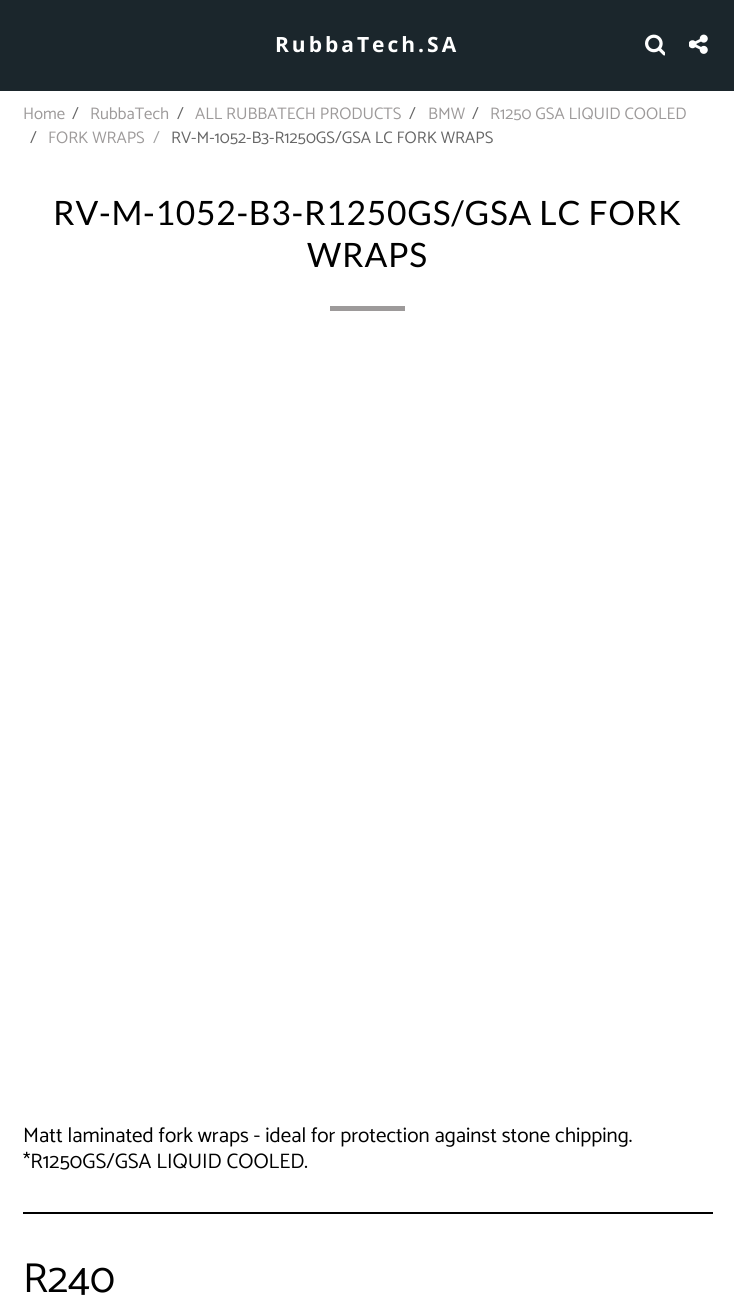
#include <cairo/cairo.h>
#include <math.h>
#include <stddef.h>


static void draw_spaced(cairo_t *cr, double x, double y, const char *s, double letter, double word) {
  cairo_move_to(cr, x, y);
  while (*s) {
    char ch[5] = {0};
    int n = 0;
    do ch[n++] = *s++; while ((*s & 0xC0) == 0x80);
    cairo_show_text(cr, ch);
    cairo_rel_move_to(cr, letter + word * (*ch == ' '), 0);
  }
}

static void draw_image(cairo_t *cr, const char *path, double x, double y, double w, double h) {
  cairo_surface_t *image = cairo_image_surface_create_from_png(path);
  cairo_save(cr);
  cairo_set_source_surface(cr, image, x, y);
  cairo_rectangle(cr, x, y, w, h);
  cairo_fill(cr);
  cairo_restore(cr);
  cairo_surface_destroy(image);
}

static void draw(cairo_t *cr) {
  cairo_set_source_rgb(cr, 1, 1, 1);
  cairo_paint(cr);
  cairo_set_source_rgb(cr, 27 / 255.0, 38 / 255.0, 44 / 255.0);
  cairo_rectangle(cr, 0, 0, 734, 91);
  cairo_fill(cr);
  draw_image(cr, "images/1.png", 645, 34, 20, 22);
  draw_image(cr, "images/2.png", 689, 34, 19, 20);
  cairo_set_source_rgb(cr, 157 / 255.0, 154 / 255.0, 154 / 255.0);
  cairo_rectangle(cr, 330, 306, 75, 5);
  cairo_fill(cr);
  cairo_set_source_rgb(cr, 0, 0, 0);
  cairo_rectangle(cr, 23, 1212, 690, 2);
  cairo_fill(cr);
  cairo_select_font_face(cr, "Open Sans", CAIRO_FONT_SLANT_NORMAL, CAIRO_FONT_WEIGHT_BOLD);
  cairo_set_font_size(cr, 21);
  cairo_set_source_rgb(cr, 1, 1, 1);
  draw_spaced(cr, 275, 52, "RubbaTech.SA", 3, 0);
  cairo_select_font_face(cr, "Catamaran", CAIRO_FONT_SLANT_NORMAL, CAIRO_FONT_WEIGHT_NORMAL);
  cairo_set_font_size(cr, 16.75);
  cairo_set_source_rgb(cr, 157 / 255.0, 154 / 255.0, 154 / 255.0);
  cairo_move_to(cr, 23, 119);
  cairo_show_text(cr, "Home");
  cairo_set_source_rgb(cr, 102 / 255.0, 102 / 255.0, 102 / 255.0);
  cairo_move_to(cr, 72, 119);
  cairo_show_text(cr, "/");
  cairo_set_source_rgb(cr, 157 / 255.0, 154 / 255.0, 154 / 255.0);
  cairo_move_to(cr, 90, 119);
  cairo_show_text(cr, "RubbaTech");
  cairo_set_source_rgb(cr, 102 / 255.0, 102 / 255.0, 102 / 255.0);
  cairo_move_to(cr, 177, 119);
  cairo_show_text(cr, "/");
  cairo_set_source_rgb(cr, 157 / 255.0, 154 / 255.0, 154 / 255.0);
  cairo_move_to(cr, 195, 119);
  cairo_show_text(cr, "ALL RUBBATECH PRODUCTS");
  cairo_set_source_rgb(cr, 102 / 255.0, 102 / 255.0, 102 / 255.0);
  cairo_move_to(cr, 409, 119);
  cairo_show_text(cr, "/");
  cairo_set_source_rgb(cr, 157 / 255.0, 154 / 255.0, 154 / 255.0);
  cairo_move_to(cr, 428, 119);
  cairo_show_text(cr, "BMW");
  cairo_set_source_rgb(cr, 102 / 255.0, 102 / 255.0, 102 / 255.0);
  cairo_move_to(cr, 472, 119);
  cairo_show_text(cr, "/");
  cairo_set_source_rgb(cr, 157 / 255.0, 154 / 255.0, 154 / 255.0);
  cairo_move_to(cr, 490, 119);
  cairo_show_text(cr, "R1250 GSA LIQUID COOLED");
  cairo_set_source_rgb(cr, 102 / 255.0, 102 / 255.0, 102 / 255.0);
  cairo_move_to(cr, 30, 143);
  cairo_show_text(cr, "/");
  cairo_set_source_rgb(cr, 157 / 255.0, 154 / 255.0, 154 / 255.0);
  cairo_move_to(cr, 48, 143);
  cairo_show_text(cr, "FORK WRAPS");
  cairo_set_source_rgb(cr, 163 / 255.0, 163 / 255.0, 163 / 255.0);
  cairo_move_to(cr, 153, 143);
  cairo_show_text(cr, "/");
  cairo_set_source_rgb(cr, 102 / 255.0, 102 / 255.0, 102 / 255.0);
  cairo_move_to(cr, 171, 143);
  cairo_show_text(cr, "RV-M-1052-B3-R1250GS/GSA LC FORK WRAPS");
  cairo_select_font_face(cr, "Lato", CAIRO_FONT_SLANT_NORMAL, CAIRO_FONT_WEIGHT_NORMAL);
  cairo_set_font_size(cr, 33.6);
  cairo_set_source_rgb(cr, 0, 0, 0);
  draw_spaced(cr, 53, 225, "RV-M-1052-B3-R1250GS/GSA LC FORK", 0.75, 0);
  draw_spaced(cr, 307, 267, "WRAPS", 0.75, 0);
  cairo_select_font_face(cr, "Catamaran", CAIRO_FONT_SLANT_NORMAL, CAIRO_FONT_WEIGHT_NORMAL);
  cairo_set_font_size(cr, 21);
  cairo_move_to(cr, 23, 1142);
  cairo_show_text(cr, "Matt laminated fork wraps - ideal for protection against stone chipping.");
  cairo_move_to(cr, 23, 1168);
  cairo_show_text(cr, "*R1250GS/GSA LIQUID COOLED.");
  cairo_set_font_size(cr, 42);
  cairo_move_to(cr, 23, 1292);
  cairo_show_text(cr, "R240");
}

int main(void) {
  cairo_surface_t *surface = cairo_image_surface_create(CAIRO_FORMAT_RGB24, 734, 1305);
  cairo_t *cr = cairo_create(surface);
  cairo_font_options_t *options = cairo_font_options_create();
  cairo_font_options_set_hint_metrics(options, CAIRO_HINT_METRICS_OFF);
  cairo_font_options_set_hint_style(options, CAIRO_HINT_STYLE_NONE);
  cairo_set_font_options(cr, options);
  cairo_set_miter_limit(cr, 4);
  draw(cr);
  cairo_surface_write_to_png(surface, "out.png");
  cairo_font_options_destroy(options);
  cairo_destroy(cr);
  cairo_surface_destroy(surface);
  return 0;
}
